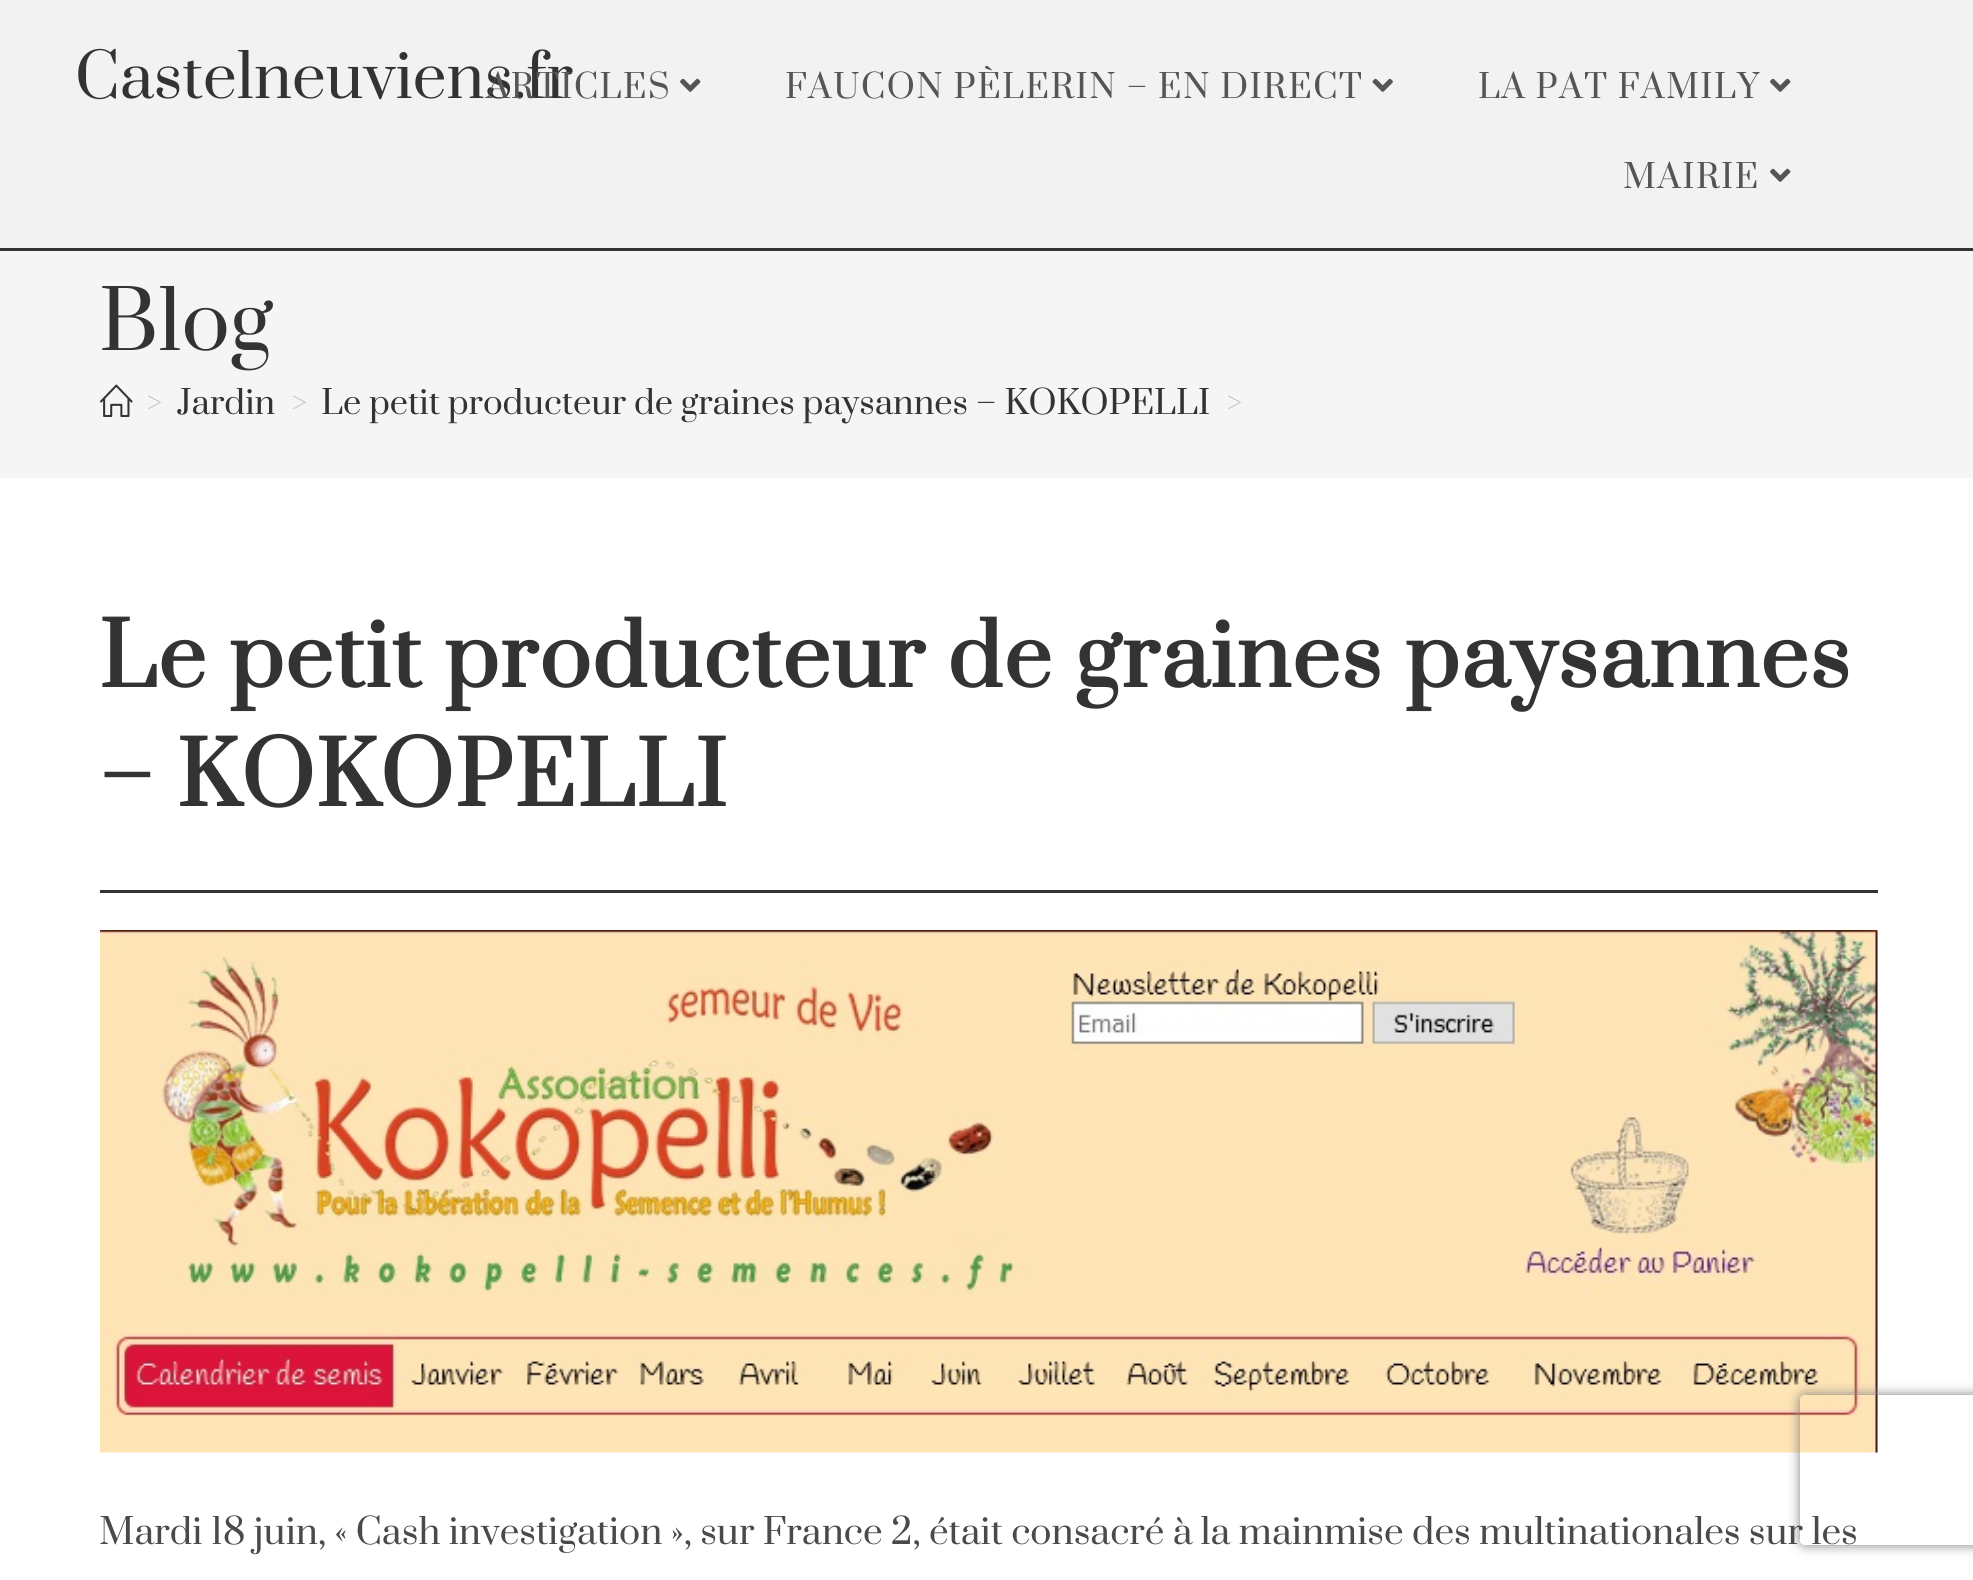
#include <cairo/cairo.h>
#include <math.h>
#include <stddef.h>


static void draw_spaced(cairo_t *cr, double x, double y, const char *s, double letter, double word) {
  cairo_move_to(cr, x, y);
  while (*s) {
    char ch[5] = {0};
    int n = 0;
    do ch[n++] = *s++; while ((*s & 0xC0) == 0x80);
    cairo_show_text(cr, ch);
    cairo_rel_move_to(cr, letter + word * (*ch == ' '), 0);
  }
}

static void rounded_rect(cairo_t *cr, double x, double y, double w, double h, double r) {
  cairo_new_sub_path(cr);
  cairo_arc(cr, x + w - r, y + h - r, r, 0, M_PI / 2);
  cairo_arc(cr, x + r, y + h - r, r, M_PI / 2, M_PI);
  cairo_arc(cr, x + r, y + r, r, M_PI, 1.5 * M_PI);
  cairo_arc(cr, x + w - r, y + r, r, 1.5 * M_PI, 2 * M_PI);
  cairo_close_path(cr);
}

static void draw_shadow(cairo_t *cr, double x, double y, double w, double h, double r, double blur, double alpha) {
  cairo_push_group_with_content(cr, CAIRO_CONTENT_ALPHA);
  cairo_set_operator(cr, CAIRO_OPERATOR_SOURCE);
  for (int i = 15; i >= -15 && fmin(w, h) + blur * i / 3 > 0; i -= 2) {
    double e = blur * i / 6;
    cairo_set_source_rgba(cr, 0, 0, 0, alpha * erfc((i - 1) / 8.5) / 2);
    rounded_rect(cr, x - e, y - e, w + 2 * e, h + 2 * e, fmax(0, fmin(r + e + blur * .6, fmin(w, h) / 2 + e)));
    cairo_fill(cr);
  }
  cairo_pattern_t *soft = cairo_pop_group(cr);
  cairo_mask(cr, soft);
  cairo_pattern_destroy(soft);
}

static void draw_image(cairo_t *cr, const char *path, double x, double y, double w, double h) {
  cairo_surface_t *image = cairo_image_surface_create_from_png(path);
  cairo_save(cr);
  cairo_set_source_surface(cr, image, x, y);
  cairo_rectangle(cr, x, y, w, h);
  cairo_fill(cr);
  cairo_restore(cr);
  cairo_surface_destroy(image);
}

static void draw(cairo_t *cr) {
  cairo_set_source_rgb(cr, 1, 1, 1);
  cairo_paint(cr);
  cairo_set_source_rgb(cr, 242 / 255.0, 242 / 255.0, 242 / 255.0);
  cairo_rectangle(cr, 0, 0, 1973, 248);
  cairo_fill(cr);
  cairo_set_source_rgb(cr, 51 / 255.0, 51 / 255.0, 51 / 255.0);
  cairo_rectangle(cr, 0, 248, 1973, 3);
  cairo_fill(cr);
  draw_image(cr, "images/1.png", 680, 78, 21, 14);
  draw_image(cr, "images/2.png", 1372, 78, 21, 14);
  draw_image(cr, "images/1.png", 1770, 78, 21, 14);
  draw_image(cr, "images/1.png", 1770, 168, 21, 14);
  cairo_set_source_rgb(cr, 245 / 255.0, 245 / 255.0, 245 / 255.0);
  cairo_rectangle(cr, 0, 251, 1973, 227);
  cairo_fill(cr);
  draw_image(cr, "images/3.png", 100, 384, 33, 33);
  cairo_set_source_rgb(cr, 51 / 255.0, 51 / 255.0, 51 / 255.0);
  cairo_rectangle(cr, 100, 890, 1778, 3);
  cairo_fill(cr);
  draw_image(cr, "images/4.png", 100, 930, 1778, 523);
  cairo_save(cr);
  cairo_set_fill_rule(cr, CAIRO_FILL_RULE_EVEN_ODD);
  cairo_new_path(cr);
  cairo_move_to(cr, 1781, 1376);
  cairo_line_to(cr, 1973, 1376);
  cairo_line_to(cr, 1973, 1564);
  cairo_line_to(cr, 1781, 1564);
  cairo_close_path(cr);
  cairo_move_to(cr, 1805, 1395);
  cairo_line_to(cr, 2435, 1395);
  cairo_curve_to(cr, 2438, 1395, 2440, 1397, 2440, 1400);
  cairo_line_to(cr, 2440, 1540);
  cairo_curve_to(cr, 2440, 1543, 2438, 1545, 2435, 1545);
  cairo_line_to(cr, 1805, 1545);
  cairo_curve_to(cr, 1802, 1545, 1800, 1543, 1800, 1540);
  cairo_line_to(cr, 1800, 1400);
  cairo_curve_to(cr, 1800, 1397, 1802, 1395, 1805, 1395);
  cairo_close_path(cr);
  cairo_clip(cr);
  cairo_set_source_rgb(cr, 128 / 255.0, 128 / 255.0, 128 / 255.0);
  draw_shadow(cr, 1800, 1395, 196, 150, 5, 6, 1);
  cairo_restore(cr);
  cairo_select_font_face(cr, "Prata", CAIRO_FONT_SLANT_NORMAL, CAIRO_FONT_WEIGHT_NORMAL);
  cairo_set_font_size(cr, 60);
  cairo_move_to(cr, 75, 98);
  cairo_show_text(cr, "Castelneuviens.fr");
  cairo_set_font_size(cr, 32.5);
  cairo_set_source_rgb(cr, 85 / 255.0, 85 / 255.0, 85 / 255.0);
  draw_spaced(cr, 486, 98, "ARTICLES", 1.5, 0);
  draw_spaced(cr, 785, 98, "FAUCON PÈLERIN – EN DIRECT", 1.5, 0);
  draw_spaced(cr, 1478, 98, "LA PAT FAMILY", 1.5, 0);
  draw_spaced(cr, 1623, 188, "MAIRIE", 1.5, 0);
  cairo_set_font_size(cr, 80);
  cairo_set_source_rgb(cr, 51 / 255.0, 51 / 255.0, 51 / 255.0);
  cairo_move_to(cr, 99, 350);
  cairo_show_text(cr, "Blog");
  cairo_set_font_size(cr, 32.5);
  cairo_set_source_rgb(cr, 198 / 255.0, 198 / 255.0, 198 / 255.0);
  cairo_move_to(cr, 146, 414);
  cairo_show_text(cr, ">");
  cairo_set_source_rgb(cr, 51 / 255.0, 51 / 255.0, 51 / 255.0);
  cairo_move_to(cr, 177, 414);
  cairo_show_text(cr, "Jardin");
  cairo_set_source_rgb(cr, 198 / 255.0, 198 / 255.0, 198 / 255.0);
  cairo_move_to(cr, 291, 414);
  cairo_show_text(cr, ">");
  cairo_set_source_rgb(cr, 51 / 255.0, 51 / 255.0, 51 / 255.0);
  cairo_move_to(cr, 321, 414);
  cairo_show_text(cr, "Le petit producteur de graines paysannes – KOKOPELLI");
  cairo_set_source_rgb(cr, 198 / 255.0, 198 / 255.0, 198 / 255.0);
  cairo_move_to(cr, 1226, 414);
  cairo_show_text(cr, ">");
  cairo_select_font_face(cr, "Prata", CAIRO_FONT_SLANT_NORMAL, CAIRO_FONT_WEIGHT_BOLD);
  cairo_set_font_size(cr, 85);
  cairo_set_source_rgb(cr, 51 / 255.0, 51 / 255.0, 51 / 255.0);
  draw_spaced(cr, 99, 687, "Le petit producteur de graines paysannes", 1.5, 0);
  draw_spaced(cr, 99, 806, "– KOKOPELLI", 1.5, 0);
  cairo_select_font_face(cr, "Prata", CAIRO_FONT_SLANT_NORMAL, CAIRO_FONT_WEIGHT_NORMAL);
  cairo_set_font_size(cr, 35);
  cairo_set_source_rgb(cr, 74 / 255.0, 74 / 255.0, 74 / 255.0);
  cairo_move_to(cr, 99, 1544);
  cairo_show_text(cr, "Mardi 18 juin, « Cash investigation », sur France 2, était consacré à la mainmise des multinationales sur les");
}

int main(void) {
  cairo_surface_t *surface = cairo_image_surface_create(CAIRO_FORMAT_RGB24, 1973, 1580);
  cairo_t *cr = cairo_create(surface);
  cairo_font_options_t *options = cairo_font_options_create();
  cairo_font_options_set_hint_metrics(options, CAIRO_HINT_METRICS_OFF);
  cairo_font_options_set_hint_style(options, CAIRO_HINT_STYLE_NONE);
  cairo_set_font_options(cr, options);
  cairo_set_miter_limit(cr, 4);
  draw(cr);
  cairo_surface_write_to_png(surface, "out.png");
  cairo_font_options_destroy(options);
  cairo_destroy(cr);
  cairo_surface_destroy(surface);
  return 0;
}
